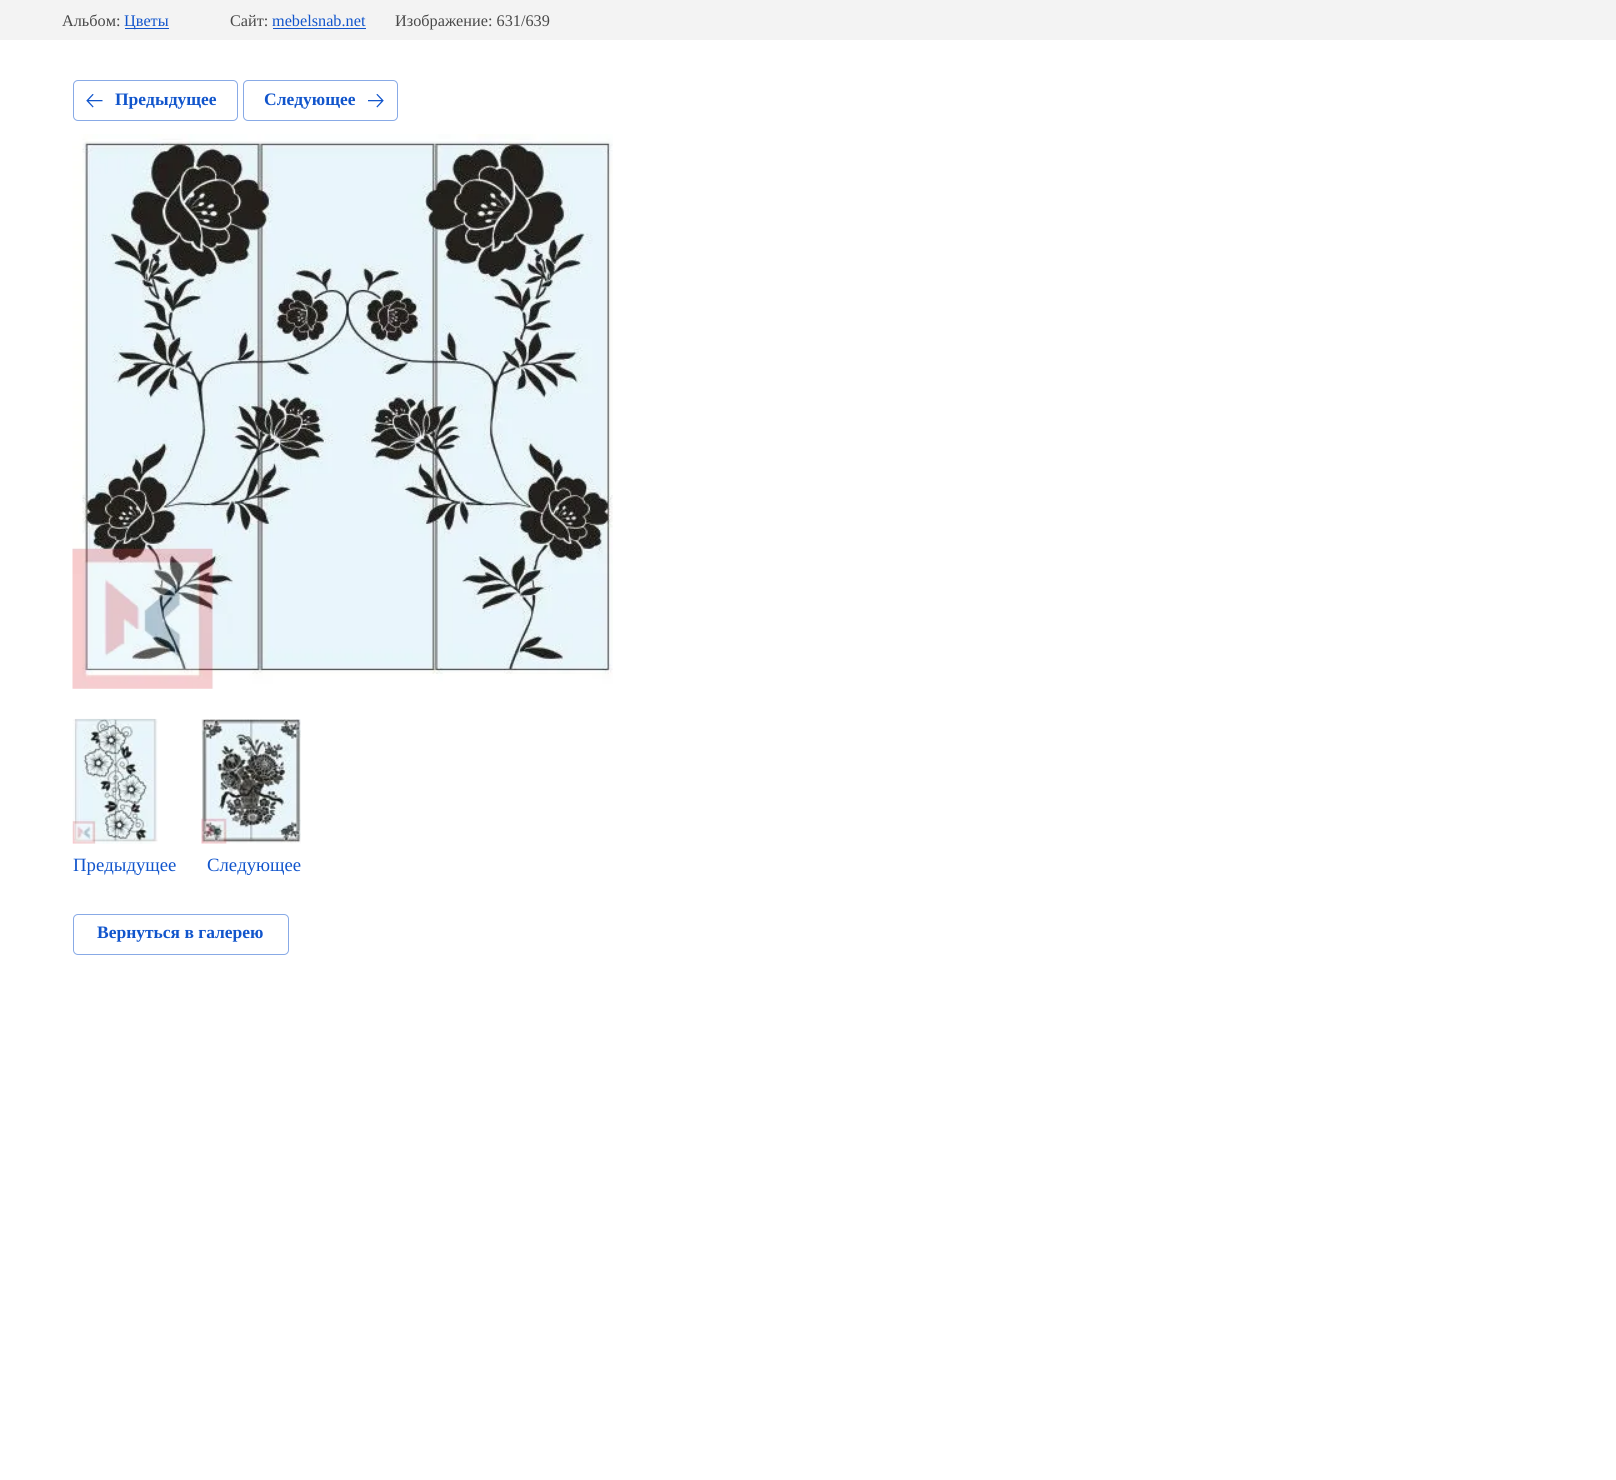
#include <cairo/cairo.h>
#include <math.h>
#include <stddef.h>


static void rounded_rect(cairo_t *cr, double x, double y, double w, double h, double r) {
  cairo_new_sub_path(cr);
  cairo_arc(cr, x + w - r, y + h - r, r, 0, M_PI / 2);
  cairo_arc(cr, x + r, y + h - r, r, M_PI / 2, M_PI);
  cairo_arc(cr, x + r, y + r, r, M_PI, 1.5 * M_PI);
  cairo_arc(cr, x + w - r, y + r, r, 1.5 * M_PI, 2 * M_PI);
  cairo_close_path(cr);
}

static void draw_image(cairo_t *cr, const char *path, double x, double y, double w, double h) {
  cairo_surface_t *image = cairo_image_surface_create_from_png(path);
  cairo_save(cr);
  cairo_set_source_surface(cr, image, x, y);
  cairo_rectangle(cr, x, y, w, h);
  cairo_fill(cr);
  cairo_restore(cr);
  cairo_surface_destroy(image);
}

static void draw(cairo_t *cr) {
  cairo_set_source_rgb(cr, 1, 1, 1);
  cairo_paint(cr);
  cairo_set_source_rgb(cr, 243 / 255.0, 243 / 255.0, 243 / 255.0);
  cairo_rectangle(cr, 0, 0, 1616, 40);
  cairo_fill(cr);
  cairo_set_source_rgb(cr, 17 / 255.0, 85 / 255.0, 204 / 255.0);
  cairo_rectangle(cr, 125, 28, 44, 1);
  cairo_fill(cr);
  cairo_rectangle(cr, 273, 28, 93, 1);
  cairo_fill(cr);
  rounded_rect(cr, 73.5, 80.5, 164, 40, 4.5);
  cairo_set_source_rgb(cr, 136 / 255.0, 170 / 255.0, 230 / 255.0);
  cairo_set_line_width(cr, 1);
  cairo_stroke(cr);
  draw_image(cr, "images/1.png", 86, 94, 17, 14);
  rounded_rect(cr, 243.5, 80.5, 154, 40, 4.5);
  cairo_stroke(cr);
  draw_image(cr, "images/2.png", 368, 94, 16, 14);
  draw_image(cr, "images/3.png", 72, 134, 541, 555);
  draw_image(cr, "images/4.png", 72, 718, 86, 126);
  draw_image(cr, "images/5.png", 201, 719, 100, 125);
  rounded_rect(cr, 73.5, 914.5, 215, 40, 4.5);
  cairo_stroke(cr);
  cairo_select_font_face(cr, "Liberation Serif", CAIRO_FONT_SLANT_NORMAL, CAIRO_FONT_WEIGHT_NORMAL);
  cairo_set_font_size(cr, 16.25);
  cairo_set_source_rgb(cr, 72 / 255.0, 72 / 255.0, 72 / 255.0);
  cairo_move_to(cr, 62, 26);
  cairo_show_text(cr, "Альбом:");
  cairo_set_source_rgb(cr, 17 / 255.0, 85 / 255.0, 204 / 255.0);
  cairo_move_to(cr, 124, 26);
  cairo_show_text(cr, "Цветы");
  cairo_set_source_rgb(cr, 72 / 255.0, 72 / 255.0, 72 / 255.0);
  cairo_move_to(cr, 230, 26);
  cairo_show_text(cr, "Сайт:");
  cairo_set_source_rgb(cr, 17 / 255.0, 85 / 255.0, 204 / 255.0);
  cairo_move_to(cr, 272, 26);
  cairo_show_text(cr, "mebelsnab.net");
  cairo_set_source_rgb(cr, 72 / 255.0, 72 / 255.0, 72 / 255.0);
  cairo_move_to(cr, 395, 26);
  cairo_show_text(cr, "Изображение: 631/639");
  cairo_select_font_face(cr, "Liberation Serif", CAIRO_FONT_SLANT_NORMAL, CAIRO_FONT_WEIGHT_BOLD);
  cairo_set_font_size(cr, 17.5);
  cairo_set_source_rgb(cr, 17 / 255.0, 85 / 255.0, 204 / 255.0);
  cairo_move_to(cr, 115, 105);
  cairo_show_text(cr, "Предыдущее");
  cairo_move_to(cr, 264, 105);
  cairo_show_text(cr, "Следующее");
  cairo_select_font_face(cr, "Liberation Serif", CAIRO_FONT_SLANT_NORMAL, CAIRO_FONT_WEIGHT_NORMAL);
  cairo_set_font_size(cr, 18.75);
  cairo_move_to(cr, 73, 871);
  cairo_show_text(cr, "Предыдущее");
  cairo_move_to(cr, 207, 871);
  cairo_show_text(cr, "Следующее");
  cairo_select_font_face(cr, "Liberation Serif", CAIRO_FONT_SLANT_NORMAL, CAIRO_FONT_WEIGHT_BOLD);
  cairo_set_font_size(cr, 17.5);
  cairo_move_to(cr, 97, 938);
  cairo_show_text(cr, "Вернуться в галерею");
}

int main(void) {
  cairo_surface_t *surface = cairo_image_surface_create(CAIRO_FORMAT_RGB24, 1616, 1480);
  cairo_t *cr = cairo_create(surface);
  cairo_font_options_t *options = cairo_font_options_create();
  cairo_font_options_set_hint_metrics(options, CAIRO_HINT_METRICS_OFF);
  cairo_font_options_set_hint_style(options, CAIRO_HINT_STYLE_NONE);
  cairo_set_font_options(cr, options);
  cairo_set_miter_limit(cr, 4);
  draw(cr);
  cairo_surface_write_to_png(surface, "out.png");
  cairo_font_options_destroy(options);
  cairo_destroy(cr);
  cairo_surface_destroy(surface);
  return 0;
}
